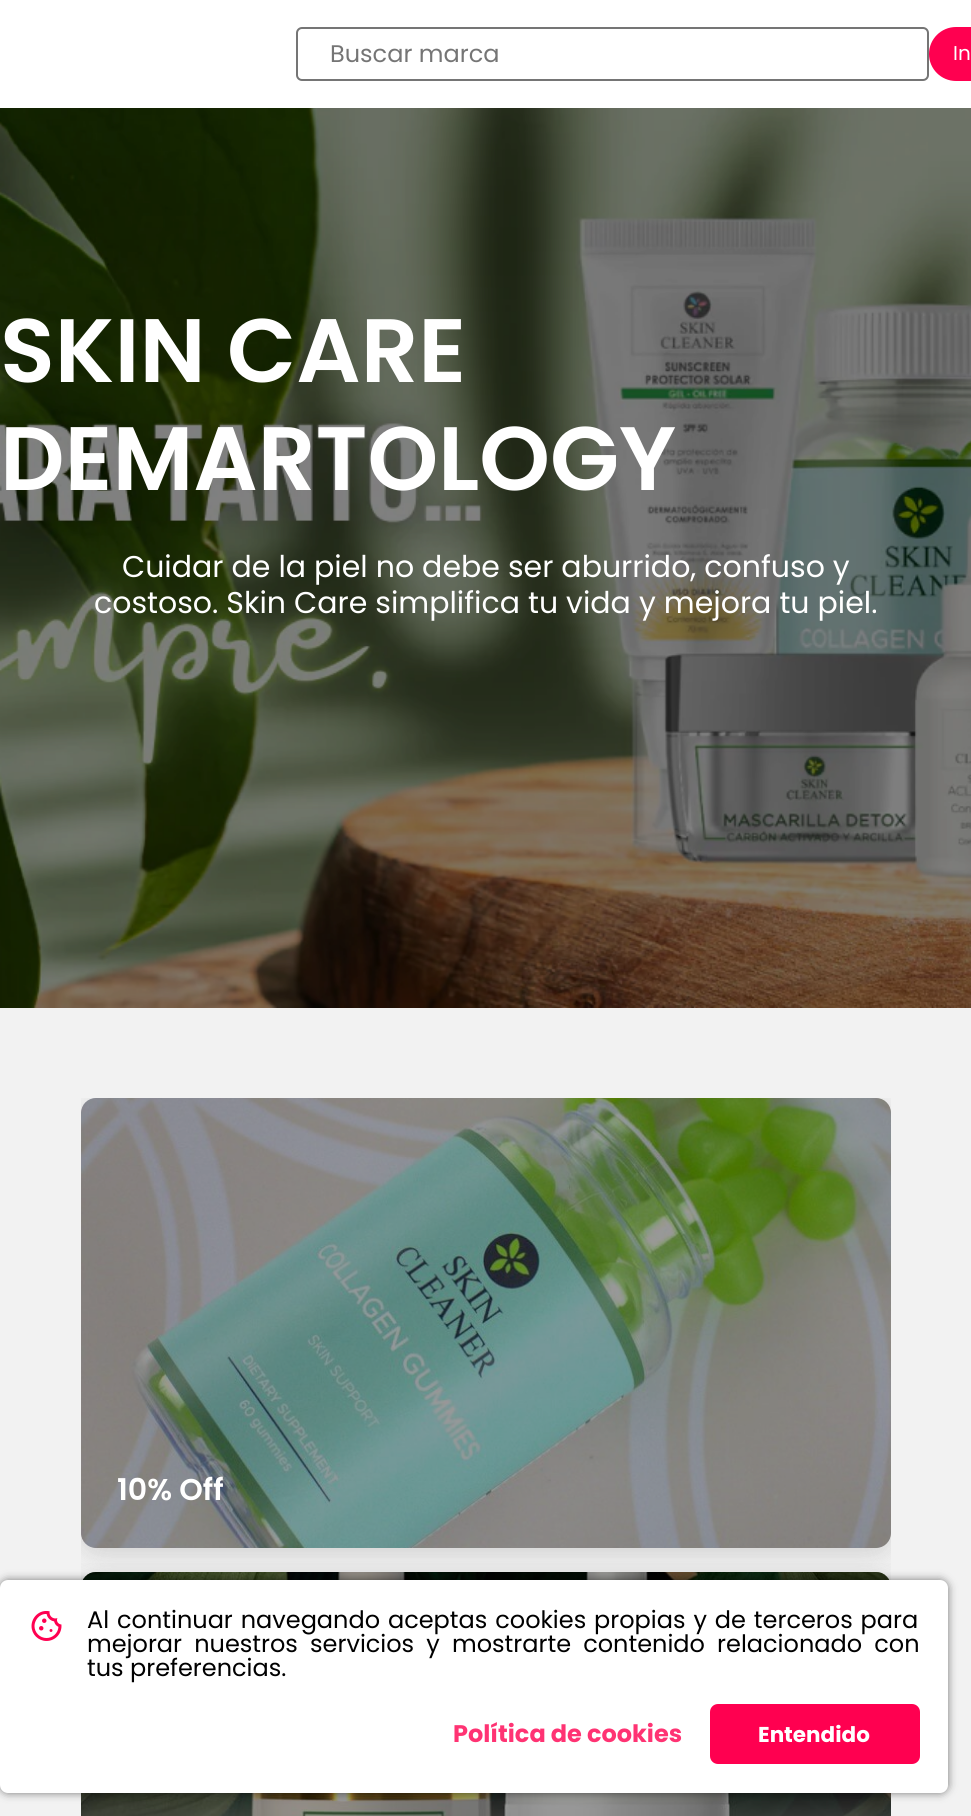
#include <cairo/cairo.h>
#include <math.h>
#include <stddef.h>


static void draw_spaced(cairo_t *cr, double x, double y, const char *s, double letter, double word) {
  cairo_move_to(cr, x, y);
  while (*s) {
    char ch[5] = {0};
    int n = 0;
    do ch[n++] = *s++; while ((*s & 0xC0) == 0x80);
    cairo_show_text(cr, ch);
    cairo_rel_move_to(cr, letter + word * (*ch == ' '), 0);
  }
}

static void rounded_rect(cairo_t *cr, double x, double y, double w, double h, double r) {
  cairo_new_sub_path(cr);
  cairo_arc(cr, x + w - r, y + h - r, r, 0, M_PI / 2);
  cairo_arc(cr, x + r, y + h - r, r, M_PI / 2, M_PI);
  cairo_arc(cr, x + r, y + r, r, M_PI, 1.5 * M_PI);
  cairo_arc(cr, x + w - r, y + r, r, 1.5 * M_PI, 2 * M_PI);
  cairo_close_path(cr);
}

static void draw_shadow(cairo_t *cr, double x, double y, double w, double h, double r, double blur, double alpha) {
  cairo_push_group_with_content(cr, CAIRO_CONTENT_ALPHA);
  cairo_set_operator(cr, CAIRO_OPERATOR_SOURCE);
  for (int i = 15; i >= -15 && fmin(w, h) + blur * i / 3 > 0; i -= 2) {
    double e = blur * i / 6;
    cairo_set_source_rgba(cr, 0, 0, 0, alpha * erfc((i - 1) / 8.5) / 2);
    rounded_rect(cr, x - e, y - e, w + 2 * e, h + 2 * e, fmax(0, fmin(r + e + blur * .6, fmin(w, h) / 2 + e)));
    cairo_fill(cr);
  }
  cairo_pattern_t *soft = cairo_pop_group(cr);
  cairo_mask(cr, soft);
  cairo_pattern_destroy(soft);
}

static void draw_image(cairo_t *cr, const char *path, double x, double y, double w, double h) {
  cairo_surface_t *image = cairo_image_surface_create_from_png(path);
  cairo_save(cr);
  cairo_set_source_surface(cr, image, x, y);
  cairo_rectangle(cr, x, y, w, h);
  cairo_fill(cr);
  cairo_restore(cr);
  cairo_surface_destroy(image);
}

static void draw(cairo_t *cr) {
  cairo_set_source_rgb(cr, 242 / 255.0, 242 / 255.0, 242 / 255.0);
  cairo_paint(cr);
  cairo_set_source_rgb(cr, 1, 1, 1);
  cairo_rectangle(cr, 0, 0, 971, 108);
  cairo_fill(cr);
  rounded_rect(cr, 297, 28, 631, 52, 5);
  cairo_set_source_rgb(cr, 117 / 255.0, 117 / 255.0, 117 / 255.0);
  cairo_stroke(cr);
  cairo_set_source_rgb(cr, 1, 0, 80 / 255.0);
  rounded_rect(cr, 929, 27, 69, 54, 27);
  cairo_fill(cr);
  draw_image(cr, "images/1.png", 0, 108, 971, 900);
  draw_image(cr, "images/2.png", 81, 1098, 810, 473);
  cairo_set_source_rgba(cr, 0, 0, 0, 0.4);
  rounded_rect(cr, 81, 1098, 810, 450, 15);
  cairo_fill(cr);
  draw_image(cr, "images/3.png", 81, 1563, 810, 253);
  cairo_new_path(cr);
  cairo_move_to(cr, 96, 1572);
  cairo_line_to(cr, 876, 1572);
  cairo_curve_to(cr, 884.5, 1572, 891, 1578.5, 891, 1587);
  cairo_line_to(cr, 891, 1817);
  cairo_line_to(cr, 81, 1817);
  cairo_line_to(cr, 81, 1587);
  cairo_curve_to(cr, 81, 1578.5, 87.5, 1572, 96, 1572);
  cairo_close_path(cr);
  cairo_fill(cr);
  cairo_set_source_rgb(cr, 0, 0, 0);
  draw_shadow(cr, 0, 1580, 948, 213, 8, 4.5, 0.5);
  cairo_set_source_rgb(cr, 1, 1, 1);
  rounded_rect(cr, 0, 1580, 948, 213, 8);
  cairo_fill(cr);
  draw_image(cr, "images/4.png", 31, 1611, 31, 30);
  cairo_set_source_rgb(cr, 1, 0, 80 / 255.0);
  rounded_rect(cr, 710, 1704, 210, 60, 8);
  cairo_fill(cr);
  cairo_select_font_face(cr, "Poppins", CAIRO_FONT_SLANT_NORMAL, CAIRO_FONT_WEIGHT_NORMAL);
  cairo_set_font_size(cr, 24);
  cairo_set_source_rgb(cr, 117 / 255.0, 117 / 255.0, 117 / 255.0);
  cairo_move_to(cr, 330, 62);
  cairo_show_text(cr, "Buscar marca");
  cairo_set_font_size(cr, 20);
  cairo_set_source_rgb(cr, 1, 1, 1);
  cairo_move_to(cr, 953, 60);
  cairo_show_text(cr, "In");
  cairo_select_font_face(cr, "Poppins SemiBold", CAIRO_FONT_SLANT_NORMAL, CAIRO_FONT_WEIGHT_NORMAL);
  cairo_set_font_size(cr, 90);
  cairo_move_to(cr, 0, 382);
  cairo_show_text(cr, "SKIN CARE");
  cairo_move_to(cr, 0, 490);
  cairo_show_text(cr, "DEMARTOLOGY");
  cairo_select_font_face(cr, "Poppins", CAIRO_FONT_SLANT_NORMAL, CAIRO_FONT_WEIGHT_NORMAL);
  cairo_set_font_size(cr, 30);
  cairo_move_to(cr, 122, 577);
  cairo_show_text(cr, "Cuidar de la piel no debe ser aburrido, confuso y");
  cairo_move_to(cr, 94, 613);
  cairo_show_text(cr, "costoso. Skin Care simplifica tu vida y mejora tu piel.");
  cairo_select_font_face(cr, "Poppins SemiBold", CAIRO_FONT_SLANT_NORMAL, CAIRO_FONT_WEIGHT_NORMAL);
  cairo_move_to(cr, 117, 1500);
  cairo_show_text(cr, "10% Off");
  cairo_select_font_face(cr, "Poppins", CAIRO_FONT_SLANT_NORMAL, CAIRO_FONT_WEIGHT_NORMAL);
  cairo_set_font_size(cr, 24);
  cairo_set_source_rgb(cr, 0, 0, 0);
  draw_spaced(cr, 87, 1628, "Al continuar navegando aceptas cookies propias y de terceros para", 0, 1.5);
  draw_spaced(cr, 87, 1652, "mejorar nuestros servicios y mostrarte contenido relacionado con", 0, 5.75);
  cairo_move_to(cr, 87, 1676);
  cairo_show_text(cr, "tus preferencias.");
  cairo_select_font_face(cr, "Poppins", CAIRO_FONT_SLANT_NORMAL, CAIRO_FONT_WEIGHT_BOLD);
  cairo_set_source_rgb(cr, 1, 51 / 255.0, 115 / 255.0);
  cairo_move_to(cr, 453, 1742);
  cairo_show_text(cr, "Política de cookies");
  cairo_set_font_size(cr, 21.5);
  cairo_set_source_rgb(cr, 1, 1, 1);
  cairo_move_to(cr, 758, 1742);
  cairo_show_text(cr, "Entendido");
}

int main(void) {
  cairo_surface_t *surface = cairo_image_surface_create(CAIRO_FORMAT_RGB24, 971, 1816);
  cairo_t *cr = cairo_create(surface);
  cairo_font_options_t *options = cairo_font_options_create();
  cairo_font_options_set_hint_metrics(options, CAIRO_HINT_METRICS_OFF);
  cairo_font_options_set_hint_style(options, CAIRO_HINT_STYLE_NONE);
  cairo_set_font_options(cr, options);
  cairo_set_miter_limit(cr, 4);
  draw(cr);
  cairo_surface_write_to_png(surface, "out.png");
  cairo_font_options_destroy(options);
  cairo_destroy(cr);
  cairo_surface_destroy(surface);
  return 0;
}
